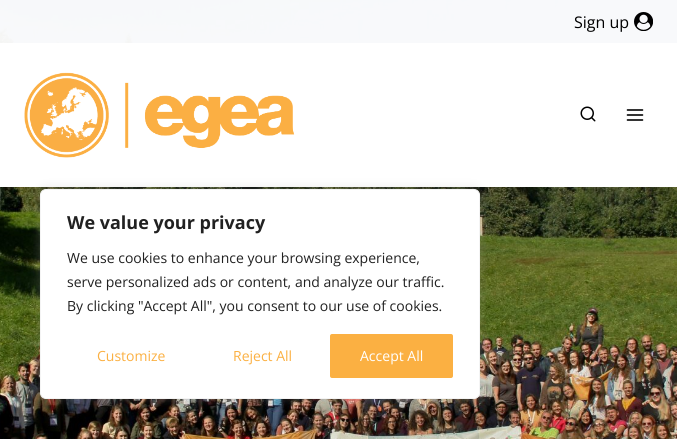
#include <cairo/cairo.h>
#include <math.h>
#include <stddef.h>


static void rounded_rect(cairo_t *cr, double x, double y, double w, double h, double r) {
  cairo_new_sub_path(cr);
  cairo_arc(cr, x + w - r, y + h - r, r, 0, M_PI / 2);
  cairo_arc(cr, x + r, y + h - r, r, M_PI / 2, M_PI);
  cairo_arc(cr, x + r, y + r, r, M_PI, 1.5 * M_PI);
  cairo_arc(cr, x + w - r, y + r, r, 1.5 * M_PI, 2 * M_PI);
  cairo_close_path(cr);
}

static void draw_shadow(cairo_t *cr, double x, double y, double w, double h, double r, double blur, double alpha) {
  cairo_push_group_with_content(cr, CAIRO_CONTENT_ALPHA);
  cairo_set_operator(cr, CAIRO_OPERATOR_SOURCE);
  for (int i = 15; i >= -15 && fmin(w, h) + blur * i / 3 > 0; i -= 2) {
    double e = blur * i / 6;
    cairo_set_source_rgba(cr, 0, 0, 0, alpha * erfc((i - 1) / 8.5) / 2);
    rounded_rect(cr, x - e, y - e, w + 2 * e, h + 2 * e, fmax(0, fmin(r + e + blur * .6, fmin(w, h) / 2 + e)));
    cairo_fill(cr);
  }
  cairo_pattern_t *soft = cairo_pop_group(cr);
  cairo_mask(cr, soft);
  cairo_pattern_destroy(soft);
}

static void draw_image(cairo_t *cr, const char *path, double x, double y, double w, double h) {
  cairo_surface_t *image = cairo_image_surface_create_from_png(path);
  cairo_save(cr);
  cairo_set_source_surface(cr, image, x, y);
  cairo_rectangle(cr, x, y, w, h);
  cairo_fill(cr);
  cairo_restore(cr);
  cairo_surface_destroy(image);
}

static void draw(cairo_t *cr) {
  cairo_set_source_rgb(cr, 1, 1, 1);
  cairo_paint(cr);
  draw_image(cr, "images/1.png", 0, 0, 677, 439);
  cairo_set_source_rgba(cr, 1, 1, 1, 0.95);
  cairo_rectangle(cr, 0, 0, 677, 43);
  cairo_fill(cr);
  draw_image(cr, "images/2.png", 634, 12, 19, 19);
  cairo_set_source_rgb(cr, 1, 1, 1);
  cairo_rectangle(cr, 0, 43, 677, 144);
  cairo_fill(cr);
  draw_image(cr, "images/3.png", 24, 72, 271, 86);
  draw_image(cr, "images/4.png", 580, 106, 16, 16);
  draw_image(cr, "images/5.png", 626, 109, 18, 12);
  cairo_set_source_rgb(cr, 172 / 255.0, 171 / 255.0, 171 / 255.0);
  draw_shadow(cr, 40, 188, 440, 210, 6, 5, 0.3);
  cairo_set_source_rgb(cr, 1, 1, 1);
  rounded_rect(cr, 40.5, 189.5, 439, 209, 5.5);
  cairo_fill_preserve(cr);
  cairo_set_source_rgb(cr, 244 / 255.0, 244 / 255.0, 244 / 255.0);
  cairo_set_line_width(cr, 1);
  cairo_stroke(cr);
  cairo_set_source_rgb(cr, 251 / 255.0, 176 / 255.0, 66 / 255.0);
  rounded_rect(cr, 330, 334, 123, 44, 2);
  cairo_fill(cr);
  cairo_select_font_face(cr, "Open Sans", CAIRO_FONT_SLANT_NORMAL, CAIRO_FONT_WEIGHT_NORMAL);
  cairo_set_font_size(cr, 16);
  cairo_set_source_rgb(cr, 0, 0, 0);
  cairo_move_to(cr, 574, 28);
  cairo_show_text(cr, "Sign up");
  cairo_select_font_face(cr, "Open Sans", CAIRO_FONT_SLANT_NORMAL, CAIRO_FONT_WEIGHT_BOLD);
  cairo_set_font_size(cr, 18);
  cairo_set_source_rgb(cr, 33 / 255.0, 33 / 255.0, 33 / 255.0);
  cairo_move_to(cr, 67, 229);
  cairo_show_text(cr, "We value your privacy");
  cairo_select_font_face(cr, "Open Sans", CAIRO_FONT_SLANT_NORMAL, CAIRO_FONT_WEIGHT_NORMAL);
  cairo_set_font_size(cr, 14);
  cairo_move_to(cr, 67, 263);
  cairo_show_text(cr, "We use cookies to enhance your browsing experience,");
  cairo_move_to(cr, 67, 287);
  cairo_show_text(cr, "serve personalized ads or content, and analyze our traffic.");
  cairo_move_to(cr, 67, 311);
  cairo_show_text(cr, "By clicking \"Accept All\", you consent to our use of cookies.");
  cairo_set_source_rgb(cr, 251 / 255.0, 176 / 255.0, 66 / 255.0);
  cairo_move_to(cr, 97, 361);
  cairo_show_text(cr, "Customize");
  cairo_move_to(cr, 233, 361);
  cairo_show_text(cr, "Reject All");
  cairo_set_source_rgb(cr, 1, 1, 1);
  cairo_move_to(cr, 360, 361);
  cairo_show_text(cr, "Accept All");
}

int main(void) {
  cairo_surface_t *surface = cairo_image_surface_create(CAIRO_FORMAT_RGB24, 677, 439);
  cairo_t *cr = cairo_create(surface);
  cairo_font_options_t *options = cairo_font_options_create();
  cairo_font_options_set_hint_metrics(options, CAIRO_HINT_METRICS_OFF);
  cairo_font_options_set_hint_style(options, CAIRO_HINT_STYLE_NONE);
  cairo_set_font_options(cr, options);
  cairo_set_miter_limit(cr, 4);
  draw(cr);
  cairo_surface_write_to_png(surface, "out.png");
  cairo_font_options_destroy(options);
  cairo_destroy(cr);
  cairo_surface_destroy(surface);
  return 0;
}
